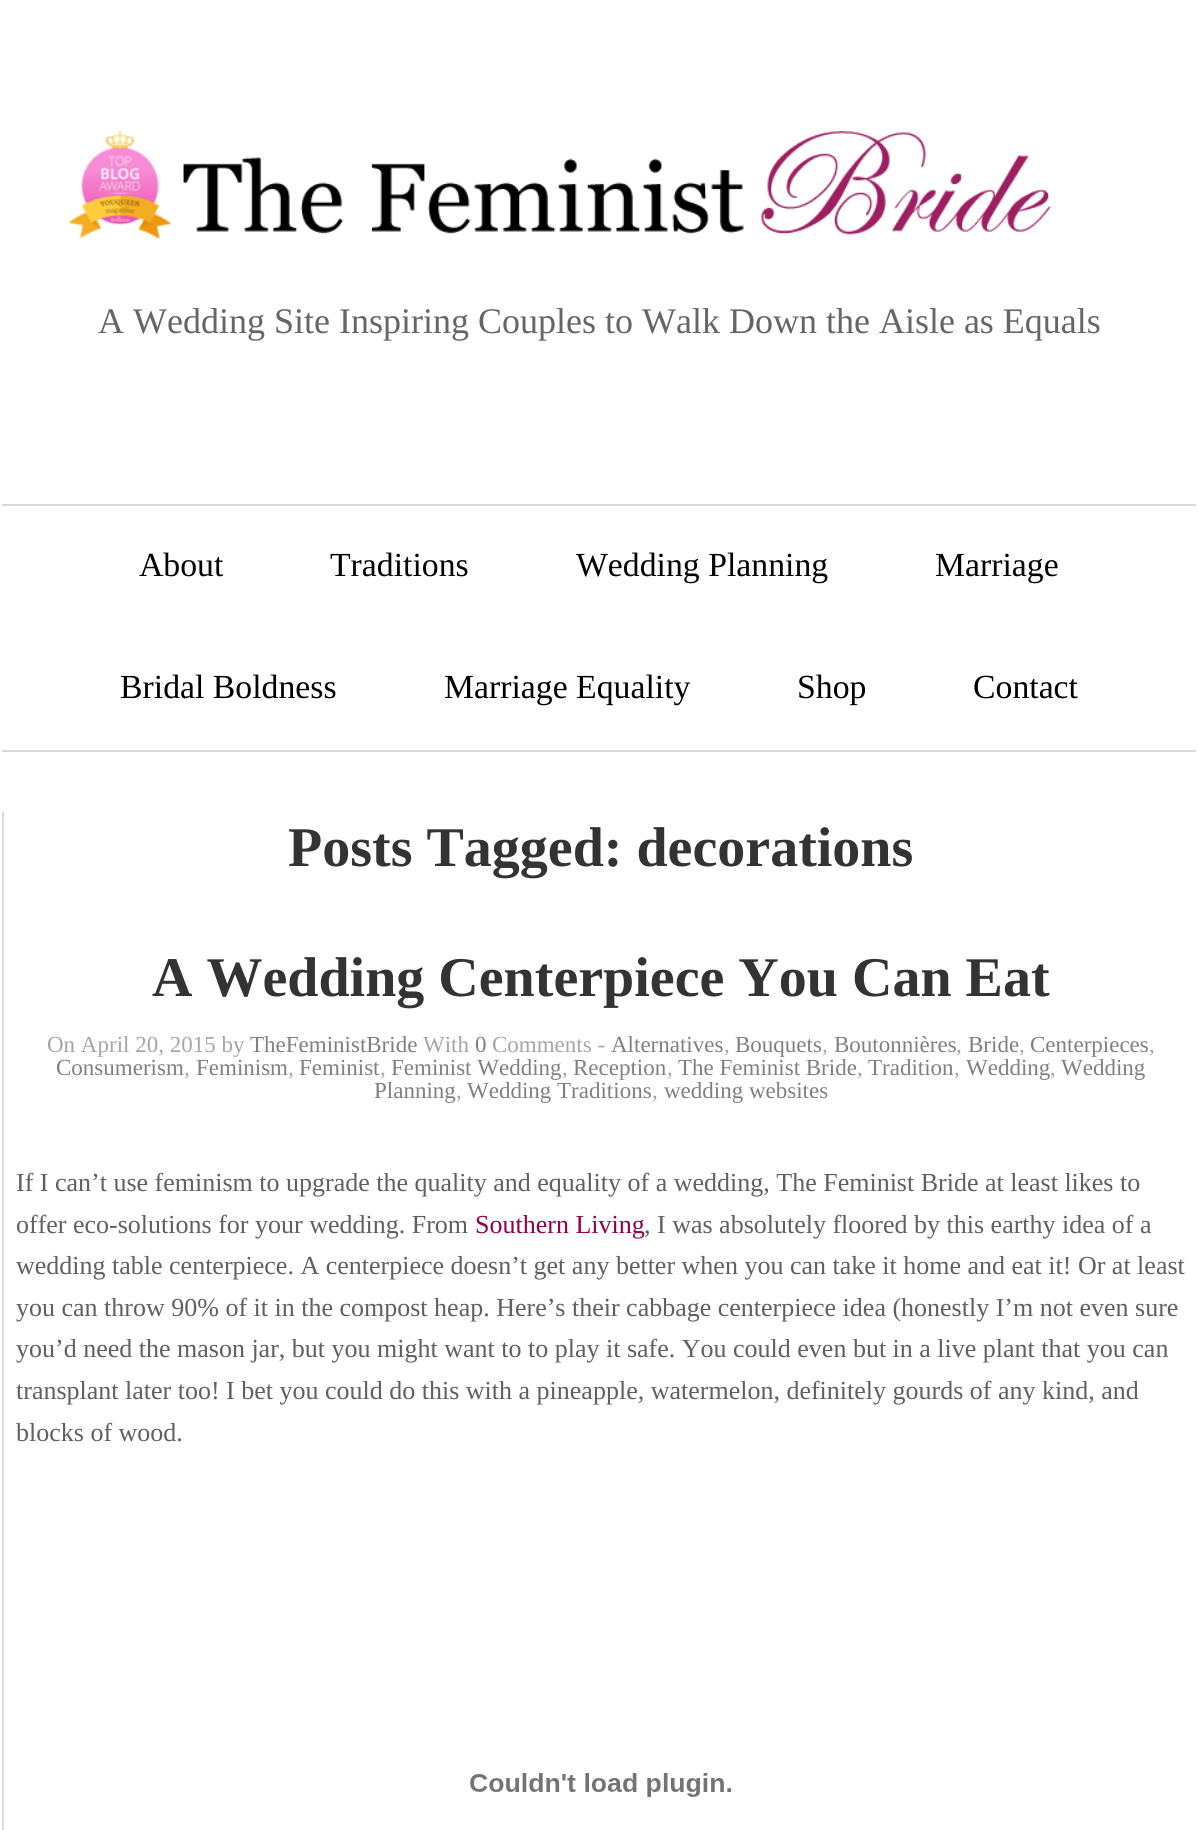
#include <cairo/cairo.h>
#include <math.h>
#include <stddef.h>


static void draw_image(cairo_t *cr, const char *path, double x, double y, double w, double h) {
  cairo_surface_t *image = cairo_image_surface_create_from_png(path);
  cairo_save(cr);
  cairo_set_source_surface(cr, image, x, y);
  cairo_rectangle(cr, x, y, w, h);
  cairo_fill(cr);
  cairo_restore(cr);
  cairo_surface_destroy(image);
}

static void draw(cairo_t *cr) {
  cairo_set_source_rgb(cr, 1, 1, 1);
  cairo_paint(cr);
  draw_image(cr, "images/1.png", 68, 131, 983, 107);
  cairo_set_source_rgb(cr, 217 / 255.0, 217 / 255.0, 217 / 255.0);
  cairo_rectangle(cr, 2, 504, 1194, 2);
  cairo_fill(cr);
  cairo_rectangle(cr, 2, 750, 1194, 2);
  cairo_fill(cr);
  cairo_rectangle(cr, 2, 812, 2, 1018);
  cairo_fill(cr);
  draw_image(cr, "images/2.png", 470, 1773, 262, 24);
  cairo_select_font_face(cr, "Liberation Serif", CAIRO_FONT_SLANT_NORMAL, CAIRO_FONT_WEIGHT_NORMAL);
  cairo_set_font_size(cr, 36);
  cairo_set_source_rgb(cr, 102 / 255.0, 102 / 255.0, 102 / 255.0);
  cairo_move_to(cr, 98, 333);
  cairo_show_text(cr, "A Wedding Site Inspiring Couples to Walk Down the Aisle as Equals");
  cairo_set_font_size(cr, 33.75);
  cairo_set_source_rgb(cr, 0, 0, 0);
  cairo_move_to(cr, 139, 576);
  cairo_show_text(cr, "About");
  cairo_move_to(cr, 330, 576);
  cairo_show_text(cr, "Traditions");
  cairo_move_to(cr, 576, 576);
  cairo_show_text(cr, "Wedding Planning");
  cairo_move_to(cr, 935, 576);
  cairo_show_text(cr, "Marriage");
  cairo_move_to(cr, 120, 698);
  cairo_show_text(cr, "Bridal Boldness");
  cairo_move_to(cr, 444, 698);
  cairo_show_text(cr, "Marriage Equality");
  cairo_move_to(cr, 797, 698);
  cairo_show_text(cr, "Shop");
  cairo_move_to(cr, 973, 698);
  cairo_show_text(cr, "Contact");
  cairo_select_font_face(cr, "Liberation Serif", CAIRO_FONT_SLANT_NORMAL, CAIRO_FONT_WEIGHT_BOLD);
  cairo_set_font_size(cr, 56);
  cairo_set_source_rgb(cr, 51 / 255.0, 51 / 255.0, 51 / 255.0);
  cairo_move_to(cr, 288, 866);
  cairo_show_text(cr, "Posts Tagged: decorations");
  cairo_move_to(cr, 152, 996);
  cairo_show_text(cr, "A Wedding Centerpiece You Can Eat");
  cairo_select_font_face(cr, "Liberation Serif", CAIRO_FONT_SLANT_NORMAL, CAIRO_FONT_WEIGHT_NORMAL);
  cairo_set_font_size(cr, 23);
  cairo_set_source_rgb(cr, 166 / 255.0, 166 / 255.0, 166 / 255.0);
  cairo_move_to(cr, 47, 1052);
  cairo_show_text(cr, "On April 20, 2015 by");
  cairo_set_source_rgb(cr, 128 / 255.0, 128 / 255.0, 128 / 255.0);
  cairo_move_to(cr, 250, 1052);
  cairo_show_text(cr, "TheFeministBride");
  cairo_set_source_rgb(cr, 166 / 255.0, 166 / 255.0, 166 / 255.0);
  cairo_move_to(cr, 423, 1052);
  cairo_show_text(cr, "With");
  cairo_set_source_rgb(cr, 128 / 255.0, 128 / 255.0, 128 / 255.0);
  cairo_move_to(cr, 475, 1052);
  cairo_show_text(cr, "0");
  cairo_set_source_rgb(cr, 166 / 255.0, 166 / 255.0, 166 / 255.0);
  cairo_move_to(cr, 492, 1052);
  cairo_show_text(cr, "Comments -");
  cairo_set_source_rgb(cr, 128 / 255.0, 128 / 255.0, 128 / 255.0);
  cairo_move_to(cr, 611, 1052);
  cairo_show_text(cr, "Alternatives");
  cairo_set_source_rgb(cr, 166 / 255.0, 166 / 255.0, 166 / 255.0);
  cairo_move_to(cr, 724, 1052);
  cairo_show_text(cr, ",");
  cairo_set_source_rgb(cr, 128 / 255.0, 128 / 255.0, 128 / 255.0);
  cairo_move_to(cr, 735, 1052);
  cairo_show_text(cr, "Bouquets");
  cairo_set_source_rgb(cr, 166 / 255.0, 166 / 255.0, 166 / 255.0);
  cairo_move_to(cr, 822, 1052);
  cairo_show_text(cr, ",");
  cairo_set_source_rgb(cr, 128 / 255.0, 128 / 255.0, 128 / 255.0);
  cairo_move_to(cr, 834, 1052);
  cairo_show_text(cr, "Boutonnières");
  cairo_set_source_rgb(cr, 166 / 255.0, 166 / 255.0, 166 / 255.0);
  cairo_move_to(cr, 956, 1052);
  cairo_show_text(cr, ",");
  cairo_set_source_rgb(cr, 128 / 255.0, 128 / 255.0, 128 / 255.0);
  cairo_move_to(cr, 968, 1052);
  cairo_show_text(cr, "Bride");
  cairo_set_source_rgb(cr, 166 / 255.0, 166 / 255.0, 166 / 255.0);
  cairo_move_to(cr, 1019, 1052);
  cairo_show_text(cr, ",");
  cairo_set_source_rgb(cr, 128 / 255.0, 128 / 255.0, 128 / 255.0);
  cairo_move_to(cr, 1030, 1052);
  cairo_show_text(cr, "Centerpieces");
  cairo_set_source_rgb(cr, 166 / 255.0, 166 / 255.0, 166 / 255.0);
  cairo_move_to(cr, 1149, 1052);
  cairo_show_text(cr, ",");
  cairo_set_source_rgb(cr, 128 / 255.0, 128 / 255.0, 128 / 255.0);
  cairo_move_to(cr, 56, 1075);
  cairo_show_text(cr, "Consumerism");
  cairo_set_source_rgb(cr, 166 / 255.0, 166 / 255.0, 166 / 255.0);
  cairo_move_to(cr, 184, 1075);
  cairo_show_text(cr, ",");
  cairo_set_source_rgb(cr, 128 / 255.0, 128 / 255.0, 128 / 255.0);
  cairo_move_to(cr, 196, 1075);
  cairo_show_text(cr, "Feminism");
  cairo_set_source_rgb(cr, 166 / 255.0, 166 / 255.0, 166 / 255.0);
  cairo_move_to(cr, 288, 1075);
  cairo_show_text(cr, ",");
  cairo_set_source_rgb(cr, 128 / 255.0, 128 / 255.0, 128 / 255.0);
  cairo_move_to(cr, 299, 1075);
  cairo_show_text(cr, "Feminist");
  cairo_set_source_rgb(cr, 166 / 255.0, 166 / 255.0, 166 / 255.0);
  cairo_move_to(cr, 380, 1075);
  cairo_show_text(cr, ",");
  cairo_set_source_rgb(cr, 128 / 255.0, 128 / 255.0, 128 / 255.0);
  cairo_move_to(cr, 391, 1075);
  cairo_show_text(cr, "Feminist Wedding");
  cairo_set_source_rgb(cr, 166 / 255.0, 166 / 255.0, 166 / 255.0);
  cairo_move_to(cr, 562, 1075);
  cairo_show_text(cr, ",");
  cairo_set_source_rgb(cr, 128 / 255.0, 128 / 255.0, 128 / 255.0);
  cairo_move_to(cr, 573, 1075);
  cairo_show_text(cr, "Reception");
  cairo_set_source_rgb(cr, 166 / 255.0, 166 / 255.0, 166 / 255.0);
  cairo_move_to(cr, 667, 1075);
  cairo_show_text(cr, ",");
  cairo_set_source_rgb(cr, 128 / 255.0, 128 / 255.0, 128 / 255.0);
  cairo_move_to(cr, 678, 1075);
  cairo_show_text(cr, "The Feminist Bride");
  cairo_set_source_rgb(cr, 166 / 255.0, 166 / 255.0, 166 / 255.0);
  cairo_move_to(cr, 857, 1075);
  cairo_show_text(cr, ",");
  cairo_set_source_rgb(cr, 128 / 255.0, 128 / 255.0, 128 / 255.0);
  cairo_move_to(cr, 868, 1075);
  cairo_show_text(cr, "Tradition");
  cairo_set_source_rgb(cr, 166 / 255.0, 166 / 255.0, 166 / 255.0);
  cairo_move_to(cr, 954, 1075);
  cairo_show_text(cr, ",");
  cairo_set_source_rgb(cr, 128 / 255.0, 128 / 255.0, 128 / 255.0);
  cairo_move_to(cr, 966, 1075);
  cairo_show_text(cr, "Wedding");
  cairo_set_source_rgb(cr, 166 / 255.0, 166 / 255.0, 166 / 255.0);
  cairo_move_to(cr, 1050, 1075);
  cairo_show_text(cr, ",");
  cairo_set_source_rgb(cr, 128 / 255.0, 128 / 255.0, 128 / 255.0);
  cairo_move_to(cr, 1061, 1075);
  cairo_show_text(cr, "Wedding");
  cairo_move_to(cr, 374, 1098);
  cairo_show_text(cr, "Planning");
  cairo_set_source_rgb(cr, 166 / 255.0, 166 / 255.0, 166 / 255.0);
  cairo_move_to(cr, 456, 1098);
  cairo_show_text(cr, ",");
  cairo_set_source_rgb(cr, 128 / 255.0, 128 / 255.0, 128 / 255.0);
  cairo_move_to(cr, 467, 1098);
  cairo_show_text(cr, "Wedding Traditions");
  cairo_set_source_rgb(cr, 166 / 255.0, 166 / 255.0, 166 / 255.0);
  cairo_move_to(cr, 652, 1098);
  cairo_show_text(cr, ",");
  cairo_set_source_rgb(cr, 128 / 255.0, 128 / 255.0, 128 / 255.0);
  cairo_move_to(cr, 664, 1098);
  cairo_show_text(cr, "wedding websites");
  cairo_set_font_size(cr, 26);
  cairo_set_source_rgb(cr, 96 / 255.0, 96 / 255.0, 96 / 255.0);
  cairo_move_to(cr, 16, 1191);
  cairo_show_text(cr, "If I can’t use feminism to upgrade the quality and equality of a wedding, The Feminist Bride at least likes to");
  cairo_move_to(cr, 16, 1233);
  cairo_show_text(cr, "offer eco-solutions for your wedding. From");
  cairo_set_source_rgb(cr, 147 / 255.0, 0, 74 / 255.0);
  cairo_move_to(cr, 475, 1233);
  cairo_show_text(cr, "Southern Living");
  cairo_set_source_rgb(cr, 96 / 255.0, 96 / 255.0, 96 / 255.0);
  cairo_move_to(cr, 644, 1233);
  cairo_show_text(cr, ", I was absolutely floored by this earthy idea of a");
  cairo_move_to(cr, 16, 1274);
  cairo_show_text(cr, "wedding table centerpiece. A centerpiece doesn’t get any better when you can take it home and eat it! Or at least");
  cairo_move_to(cr, 16, 1316);
  cairo_show_text(cr, "you can throw 90% of it in the compost heap. Here’s their cabbage centerpiece idea (honestly I’m not even sure");
  cairo_move_to(cr, 16, 1357);
  cairo_show_text(cr, "you’d need the mason jar, but you might want to to play it safe. You could even but in a live plant that you can");
  cairo_move_to(cr, 16, 1399);
  cairo_show_text(cr, "transplant later too! I bet you could do this with a pineapple, watermelon, definitely gourds of any kind, and");
  cairo_move_to(cr, 16, 1441);
  cairo_show_text(cr, "blocks of wood.");
}

int main(void) {
  cairo_surface_t *surface = cairo_image_surface_create(CAIRO_FORMAT_RGB24, 1198, 1830);
  cairo_t *cr = cairo_create(surface);
  cairo_font_options_t *options = cairo_font_options_create();
  cairo_font_options_set_hint_metrics(options, CAIRO_HINT_METRICS_OFF);
  cairo_font_options_set_hint_style(options, CAIRO_HINT_STYLE_NONE);
  cairo_set_font_options(cr, options);
  cairo_set_miter_limit(cr, 4);
  draw(cr);
  cairo_surface_write_to_png(surface, "out.png");
  cairo_font_options_destroy(options);
  cairo_destroy(cr);
  cairo_surface_destroy(surface);
  return 0;
}
